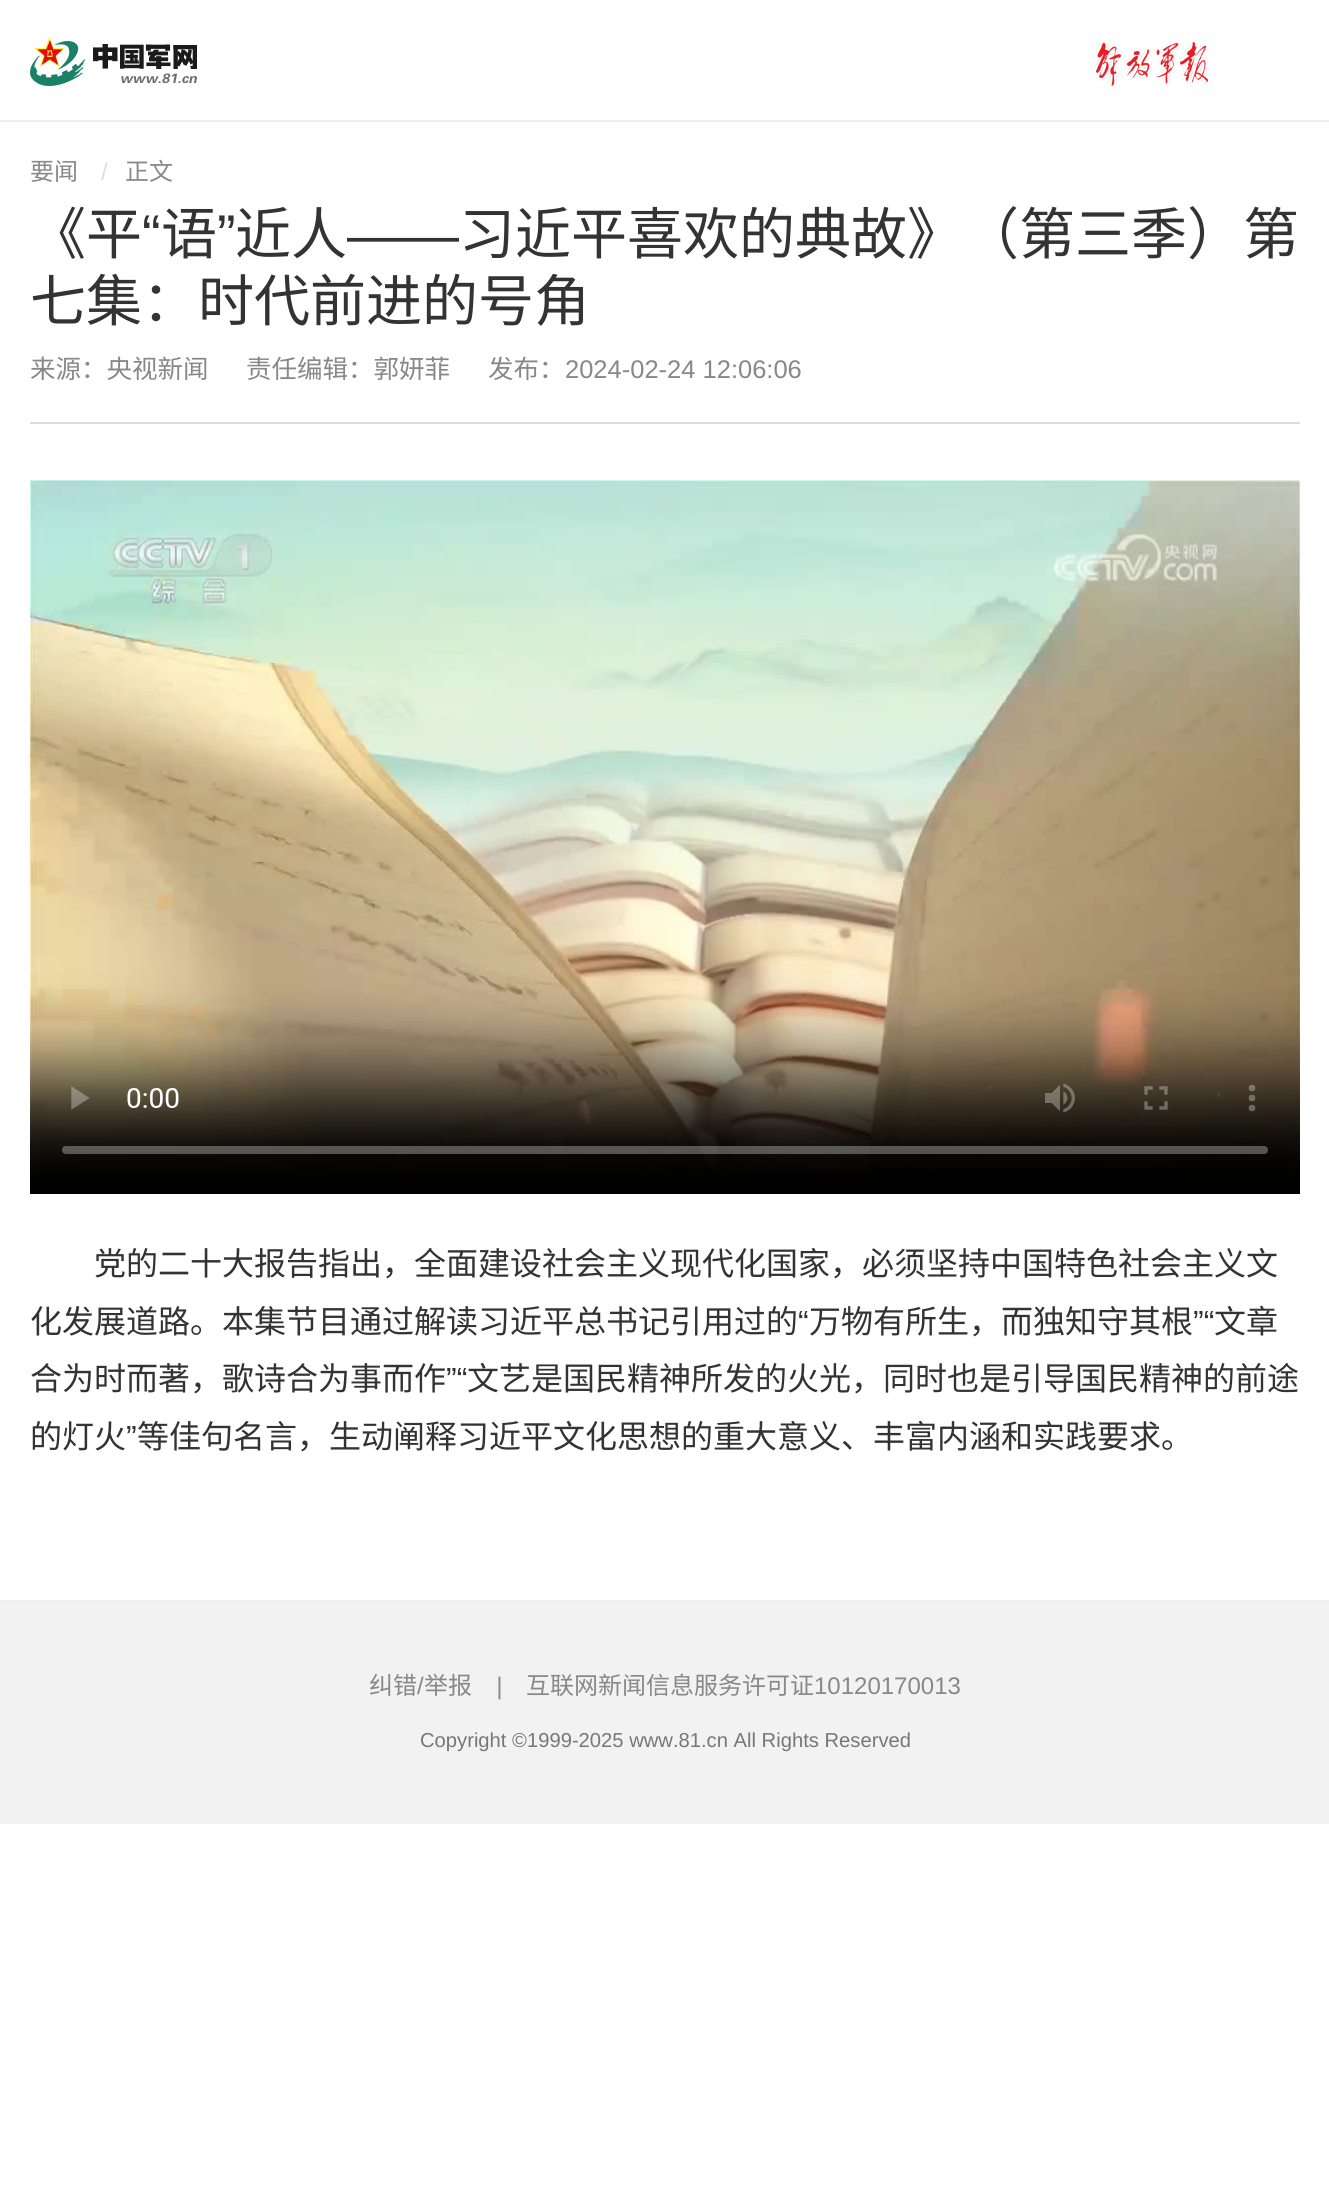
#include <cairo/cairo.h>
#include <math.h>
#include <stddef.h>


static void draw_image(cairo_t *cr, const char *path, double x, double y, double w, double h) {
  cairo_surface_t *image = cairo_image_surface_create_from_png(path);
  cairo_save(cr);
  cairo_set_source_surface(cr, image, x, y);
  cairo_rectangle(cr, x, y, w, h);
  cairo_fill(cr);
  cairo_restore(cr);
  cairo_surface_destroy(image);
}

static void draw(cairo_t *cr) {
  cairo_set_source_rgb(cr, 1, 1, 1);
  cairo_paint(cr);
  cairo_set_source_rgb(cr, 238 / 255.0, 238 / 255.0, 238 / 255.0);
  cairo_rectangle(cr, 0, 120, 1329, 2);
  cairo_fill(cr);
  draw_image(cr, "images/1.png", 30, 37, 167, 49);
  draw_image(cr, "images/2.png", 1096, 42, 112, 44);
  cairo_set_source_rgb(cr, 221 / 255.0, 221 / 255.0, 221 / 255.0);
  cairo_rectangle(cr, 30, 422, 1270, 2);
  cairo_fill(cr);
  draw_image(cr, "images/3.png", 30, 480, 1270, 714);
  cairo_set_source_rgb(cr, 242 / 255.0, 242 / 255.0, 242 / 255.0);
  cairo_rectangle(cr, 0, 1602, 1329, 222);
  cairo_fill(cr);
  cairo_set_source_rgb(cr, 238 / 255.0, 238 / 255.0, 238 / 255.0);
  cairo_rectangle(cr, 0, 1600, 1329, 2);
  cairo_fill(cr);
  cairo_select_font_face(cr, "Noto Sans CJK SC", CAIRO_FONT_SLANT_NORMAL, CAIRO_FONT_WEIGHT_NORMAL);
  cairo_set_font_size(cr, 24);
  cairo_set_source_rgb(cr, 136 / 255.0, 136 / 255.0, 136 / 255.0);
  cairo_move_to(cr, 30, 180);
  cairo_show_text(cr, "要闻");
  cairo_select_font_face(cr, "Liberation Sans", CAIRO_FONT_SLANT_NORMAL, CAIRO_FONT_WEIGHT_NORMAL);
  cairo_set_source_rgb(cr, 221 / 255.0, 221 / 255.0, 221 / 255.0);
  cairo_move_to(cr, 101, 180);
  cairo_show_text(cr, "/");
  cairo_select_font_face(cr, "Noto Sans CJK SC", CAIRO_FONT_SLANT_NORMAL, CAIRO_FONT_WEIGHT_NORMAL);
  cairo_set_source_rgb(cr, 136 / 255.0, 136 / 255.0, 136 / 255.0);
  cairo_move_to(cr, 125, 180);
  cairo_show_text(cr, "正文");
  cairo_set_font_size(cr, 56);
  cairo_set_source_rgb(cr, 51 / 255.0, 51 / 255.0, 51 / 255.0);
  cairo_move_to(cr, 30, 254);
  cairo_show_text(cr, "《平");
  cairo_select_font_face(cr, "Liberation Sans", CAIRO_FONT_SLANT_NORMAL, CAIRO_FONT_WEIGHT_NORMAL);
  cairo_move_to(cr, 142, 254);
  cairo_show_text(cr, "“");
  cairo_select_font_face(cr, "Noto Sans CJK SC", CAIRO_FONT_SLANT_NORMAL, CAIRO_FONT_WEIGHT_NORMAL);
  cairo_move_to(cr, 161, 254);
  cairo_show_text(cr, "语");
  cairo_select_font_face(cr, "Liberation Sans", CAIRO_FONT_SLANT_NORMAL, CAIRO_FONT_WEIGHT_NORMAL);
  cairo_move_to(cr, 217, 254);
  cairo_show_text(cr, "”");
  cairo_select_font_face(cr, "Noto Sans CJK SC", CAIRO_FONT_SLANT_NORMAL, CAIRO_FONT_WEIGHT_NORMAL);
  cairo_move_to(cr, 235, 254);
  cairo_show_text(cr, "近人");
  cairo_move_to(cr, 459, 254);
  cairo_show_text(cr, "习近平喜欢的典故》（第三季）第");
  cairo_select_font_face(cr, "Liberation Sans", CAIRO_FONT_SLANT_NORMAL, CAIRO_FONT_WEIGHT_NORMAL);
  cairo_move_to(cr, 347, 254);
  cairo_show_text(cr, "——");
  cairo_select_font_face(cr, "Noto Sans CJK SC", CAIRO_FONT_SLANT_NORMAL, CAIRO_FONT_WEIGHT_NORMAL);
  cairo_move_to(cr, 30, 321);
  cairo_show_text(cr, "七集：时代前进的号角");
  cairo_set_font_size(cr, 25.5);
  cairo_set_source_rgb(cr, 136 / 255.0, 136 / 255.0, 136 / 255.0);
  cairo_move_to(cr, 30, 378);
  cairo_show_text(cr, "来源：央视新闻");
  cairo_move_to(cr, 246, 378);
  cairo_show_text(cr, "责任编辑：郭妍菲");
  cairo_move_to(cr, 488, 378);
  cairo_show_text(cr, "发布：");
  cairo_select_font_face(cr, "Liberation Sans", CAIRO_FONT_SLANT_NORMAL, CAIRO_FONT_WEIGHT_NORMAL);
  cairo_move_to(cr, 565, 378);
  cairo_show_text(cr, "2024-02-24 12:06:06");
  cairo_select_font_face(cr, "Noto Sans CJK SC", CAIRO_FONT_SLANT_NORMAL, CAIRO_FONT_WEIGHT_NORMAL);
  cairo_set_font_size(cr, 32);
  cairo_set_source_rgb(cr, 51 / 255.0, 51 / 255.0, 51 / 255.0);
  cairo_move_to(cr, 94, 1275);
  cairo_show_text(cr, "党的二十大报告指出，全面建设社会主义现代化国家，必须坚持中国特色社会主义文");
  cairo_move_to(cr, 30, 1333);
  cairo_show_text(cr, "化发展道路。本集节目通过解读习近平总书记引用过的");
  cairo_select_font_face(cr, "Liberation Sans", CAIRO_FONT_SLANT_NORMAL, CAIRO_FONT_WEIGHT_NORMAL);
  cairo_move_to(cr, 798, 1333);
  cairo_show_text(cr, "“");
  cairo_select_font_face(cr, "Noto Sans CJK SC", CAIRO_FONT_SLANT_NORMAL, CAIRO_FONT_WEIGHT_NORMAL);
  cairo_move_to(cr, 809, 1333);
  cairo_show_text(cr, "万物有所生，而独知守其根");
  cairo_select_font_face(cr, "Liberation Sans", CAIRO_FONT_SLANT_NORMAL, CAIRO_FONT_WEIGHT_NORMAL);
  cairo_move_to(cr, 1193, 1333);
  cairo_show_text(cr, "”“");
  cairo_select_font_face(cr, "Noto Sans CJK SC", CAIRO_FONT_SLANT_NORMAL, CAIRO_FONT_WEIGHT_NORMAL);
  cairo_move_to(cr, 1214, 1333);
  cairo_show_text(cr, "文章");
  cairo_move_to(cr, 30, 1390);
  cairo_show_text(cr, "合为时而著，歌诗合为事而作");
  cairo_select_font_face(cr, "Liberation Sans", CAIRO_FONT_SLANT_NORMAL, CAIRO_FONT_WEIGHT_NORMAL);
  cairo_move_to(cr, 446, 1390);
  cairo_show_text(cr, "”“");
  cairo_select_font_face(cr, "Noto Sans CJK SC", CAIRO_FONT_SLANT_NORMAL, CAIRO_FONT_WEIGHT_NORMAL);
  cairo_move_to(cr, 467, 1390);
  cairo_show_text(cr, "文艺是国民精神所发的火光，同时也是引导国民精神的前途");
  cairo_move_to(cr, 30, 1448);
  cairo_show_text(cr, "的灯火");
  cairo_select_font_face(cr, "Liberation Sans", CAIRO_FONT_SLANT_NORMAL, CAIRO_FONT_WEIGHT_NORMAL);
  cairo_move_to(cr, 126, 1448);
  cairo_show_text(cr, "”");
  cairo_select_font_face(cr, "Noto Sans CJK SC", CAIRO_FONT_SLANT_NORMAL, CAIRO_FONT_WEIGHT_NORMAL);
  cairo_move_to(cr, 137, 1448);
  cairo_show_text(cr, "等佳句名言，生动阐释习近平文化思想的重大意义、丰富内涵和实践要求。");
  cairo_set_font_size(cr, 24);
  cairo_set_source_rgb(cr, 136 / 255.0, 136 / 255.0, 136 / 255.0);
  cairo_move_to(cr, 369, 1694);
  cairo_show_text(cr, "纠错");
  cairo_select_font_face(cr, "Liberation Sans", CAIRO_FONT_SLANT_NORMAL, CAIRO_FONT_WEIGHT_NORMAL);
  cairo_move_to(cr, 417, 1694);
  cairo_show_text(cr, "/");
  cairo_select_font_face(cr, "Noto Sans CJK SC", CAIRO_FONT_SLANT_NORMAL, CAIRO_FONT_WEIGHT_NORMAL);
  cairo_move_to(cr, 424, 1694);
  cairo_show_text(cr, "举报");
  cairo_select_font_face(cr, "Liberation Sans", CAIRO_FONT_SLANT_ITALIC, CAIRO_FONT_WEIGHT_NORMAL);
  cairo_move_to(cr, 496, 1694);
  cairo_show_text(cr, "|");
  cairo_select_font_face(cr, "Noto Sans CJK SC", CAIRO_FONT_SLANT_NORMAL, CAIRO_FONT_WEIGHT_NORMAL);
  cairo_move_to(cr, 526, 1694);
  cairo_show_text(cr, "互联网新闻信息服务许可证");
  cairo_select_font_face(cr, "Liberation Sans", CAIRO_FONT_SLANT_NORMAL, CAIRO_FONT_WEIGHT_NORMAL);
  cairo_move_to(cr, 814, 1694);
  cairo_show_text(cr, "10120170013");
  cairo_set_font_size(cr, 20.2);
  cairo_set_source_rgb(cr, 119 / 255.0, 119 / 255.0, 119 / 255.0);
  cairo_move_to(cr, 420, 1747);
  cairo_show_text(cr, "Copyright ©1999-2025 www.81.cn All Rights Reserved");
}

int main(void) {
  cairo_surface_t *surface = cairo_image_surface_create(CAIRO_FORMAT_RGB24, 1329, 2208);
  cairo_t *cr = cairo_create(surface);
  cairo_font_options_t *options = cairo_font_options_create();
  cairo_font_options_set_hint_metrics(options, CAIRO_HINT_METRICS_OFF);
  cairo_font_options_set_hint_style(options, CAIRO_HINT_STYLE_NONE);
  cairo_set_font_options(cr, options);
  cairo_set_miter_limit(cr, 4);
  draw(cr);
  cairo_surface_write_to_png(surface, "out.png");
  cairo_font_options_destroy(options);
  cairo_destroy(cr);
  cairo_surface_destroy(surface);
  return 0;
}
